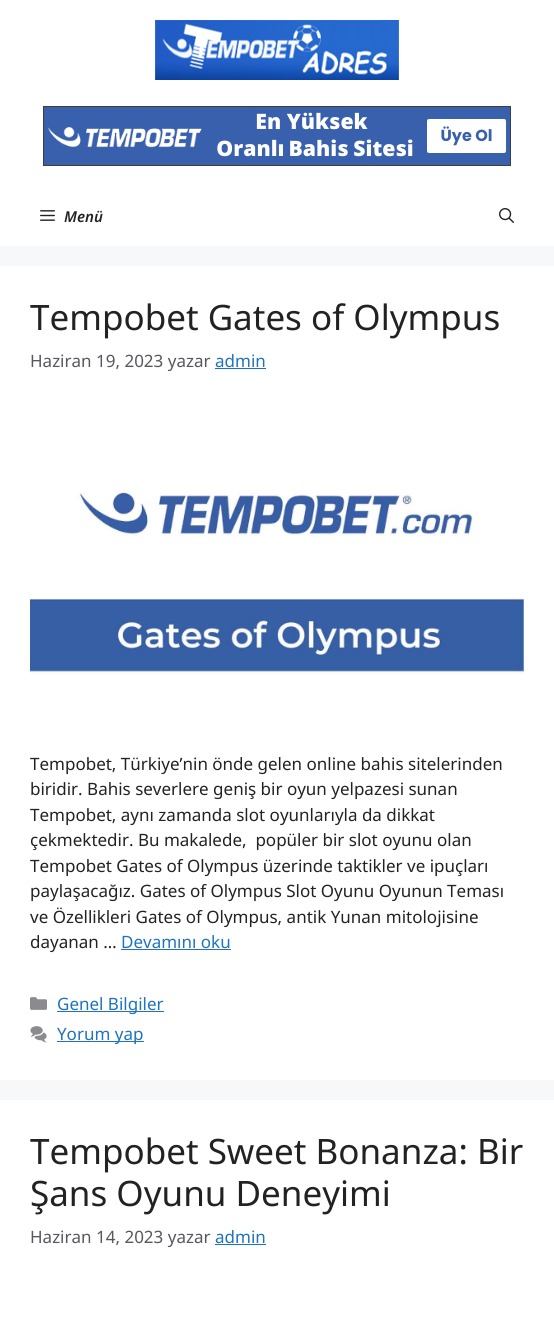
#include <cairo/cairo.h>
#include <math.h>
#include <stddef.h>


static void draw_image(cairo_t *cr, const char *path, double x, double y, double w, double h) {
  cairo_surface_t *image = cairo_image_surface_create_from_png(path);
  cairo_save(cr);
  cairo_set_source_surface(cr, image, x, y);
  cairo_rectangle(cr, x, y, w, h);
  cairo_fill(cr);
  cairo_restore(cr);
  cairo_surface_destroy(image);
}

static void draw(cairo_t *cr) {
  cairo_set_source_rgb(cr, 247 / 255.0, 248 / 255.0, 249 / 255.0);
  cairo_paint(cr);
  cairo_set_source_rgb(cr, 1, 1, 1);
  cairo_rectangle(cr, 0, 0, 554, 246);
  cairo_fill(cr);
  draw_image(cr, "images/1.png", 155, 20, 244, 60);
  draw_image(cr, "images/2.png", 43, 106, 468, 60);
  draw_image(cr, "images/3.png", 40, 210, 15, 11);
  draw_image(cr, "images/4.png", 499, 208, 15, 15);
  cairo_rectangle(cr, 0, 266, 554, 814);
  cairo_fill(cr);
  cairo_set_source_rgb(cr, 30 / 255.0, 115 / 255.0, 190 / 255.0);
  cairo_rectangle(cr, 215, 368, 51, 1);
  cairo_fill(cr);
  draw_image(cr, "images/5.png", 30, 490, 494, 184);
  cairo_rectangle(cr, 121, 949, 110, 1);
  cairo_fill(cr);
  draw_image(cr, "images/6.png", 30, 997, 17, 13);
  cairo_rectangle(cr, 57, 1011, 107, 1);
  cairo_fill(cr);
  draw_image(cr, "images/7.png", 30, 1026, 17, 17);
  cairo_rectangle(cr, 57, 1041, 87, 1);
  cairo_fill(cr);
  cairo_set_source_rgb(cr, 1, 1, 1);
  cairo_rectangle(cr, 0, 1100, 554, 239);
  cairo_fill(cr);
  cairo_set_source_rgb(cr, 30 / 255.0, 115 / 255.0, 190 / 255.0);
  cairo_rectangle(cr, 215, 1244, 51, 1);
  cairo_fill(cr);
  cairo_select_font_face(cr, "Noto Sans SemiBold", CAIRO_FONT_SLANT_ITALIC, CAIRO_FONT_WEIGHT_NORMAL);
  cairo_set_font_size(cr, 15);
  cairo_set_source_rgb(cr, 34 / 255.0, 34 / 255.0, 34 / 255.0);
  cairo_move_to(cr, 64, 222);
  cairo_show_text(cr, "Menü");
  cairo_select_font_face(cr, "Noto Sans", CAIRO_FONT_SLANT_NORMAL, CAIRO_FONT_WEIGHT_NORMAL);
  cairo_set_font_size(cr, 35);
  cairo_move_to(cr, 30, 330);
  cairo_show_text(cr, "Tempobet Gates of Olympus");
  cairo_set_font_size(cr, 17);
  cairo_set_source_rgb(cr, 87 / 255.0, 87 / 255.0, 96 / 255.0);
  cairo_move_to(cr, 30, 367);
  cairo_show_text(cr, "Haziran 19, 2023 yazar");
  cairo_set_source_rgb(cr, 30 / 255.0, 115 / 255.0, 190 / 255.0);
  cairo_move_to(cr, 215, 367);
  cairo_show_text(cr, "admin");
  cairo_set_source_rgb(cr, 34 / 255.0, 34 / 255.0, 34 / 255.0);
  cairo_move_to(cr, 30, 770);
  cairo_show_text(cr, "Tempobet, Türkiye’nin önde gelen online bahis sitelerinden");
  cairo_move_to(cr, 30, 795);
  cairo_show_text(cr, "biridir. Bahis severlere geniş bir oyun yelpazesi sunan");
  cairo_move_to(cr, 30, 821);
  cairo_show_text(cr, "Tempobet, aynı zamanda slot oyunlarıyla da dikkat");
  cairo_move_to(cr, 30, 846);
  cairo_show_text(cr, "çekmektedir. Bu makalede,  popüler bir slot oyunu olan");
  cairo_move_to(cr, 30, 872);
  cairo_show_text(cr, "Tempobet Gates of Olympus üzerinde taktikler ve ipuçları");
  cairo_move_to(cr, 30, 897);
  cairo_show_text(cr, "paylaşacağız. Gates of Olympus Slot Oyunu Oyunun Teması");
  cairo_move_to(cr, 30, 923);
  cairo_show_text(cr, "ve Özellikleri Gates of Olympus, antik Yunan mitolojisine");
  cairo_move_to(cr, 30, 948);
  cairo_show_text(cr, "dayanan …");
  cairo_set_source_rgb(cr, 30 / 255.0, 115 / 255.0, 190 / 255.0);
  cairo_move_to(cr, 121, 948);
  cairo_show_text(cr, "Devamını oku");
  cairo_move_to(cr, 57, 1010);
  cairo_show_text(cr, "Genel Bilgiler");
  cairo_move_to(cr, 57, 1040);
  cairo_show_text(cr, "Yorum yap");
  cairo_set_font_size(cr, 35);
  cairo_set_source_rgb(cr, 34 / 255.0, 34 / 255.0, 34 / 255.0);
  cairo_move_to(cr, 30, 1164);
  cairo_show_text(cr, "Tempobet Sweet Bonanza: Bir");
  cairo_move_to(cr, 30, 1206);
  cairo_show_text(cr, "Şans Oyunu Deneyimi");
  cairo_set_font_size(cr, 17);
  cairo_set_source_rgb(cr, 87 / 255.0, 87 / 255.0, 96 / 255.0);
  cairo_move_to(cr, 30, 1243);
  cairo_show_text(cr, "Haziran 14, 2023 yazar");
  cairo_set_source_rgb(cr, 30 / 255.0, 115 / 255.0, 190 / 255.0);
  cairo_move_to(cr, 215, 1243);
  cairo_show_text(cr, "admin");
}

int main(void) {
  cairo_surface_t *surface = cairo_image_surface_create(CAIRO_FORMAT_RGB24, 554, 1339);
  cairo_t *cr = cairo_create(surface);
  cairo_font_options_t *options = cairo_font_options_create();
  cairo_font_options_set_hint_metrics(options, CAIRO_HINT_METRICS_OFF);
  cairo_font_options_set_hint_style(options, CAIRO_HINT_STYLE_NONE);
  cairo_set_font_options(cr, options);
  cairo_set_miter_limit(cr, 4);
  draw(cr);
  cairo_surface_write_to_png(surface, "out.png");
  cairo_font_options_destroy(options);
  cairo_destroy(cr);
  cairo_surface_destroy(surface);
  return 0;
}
